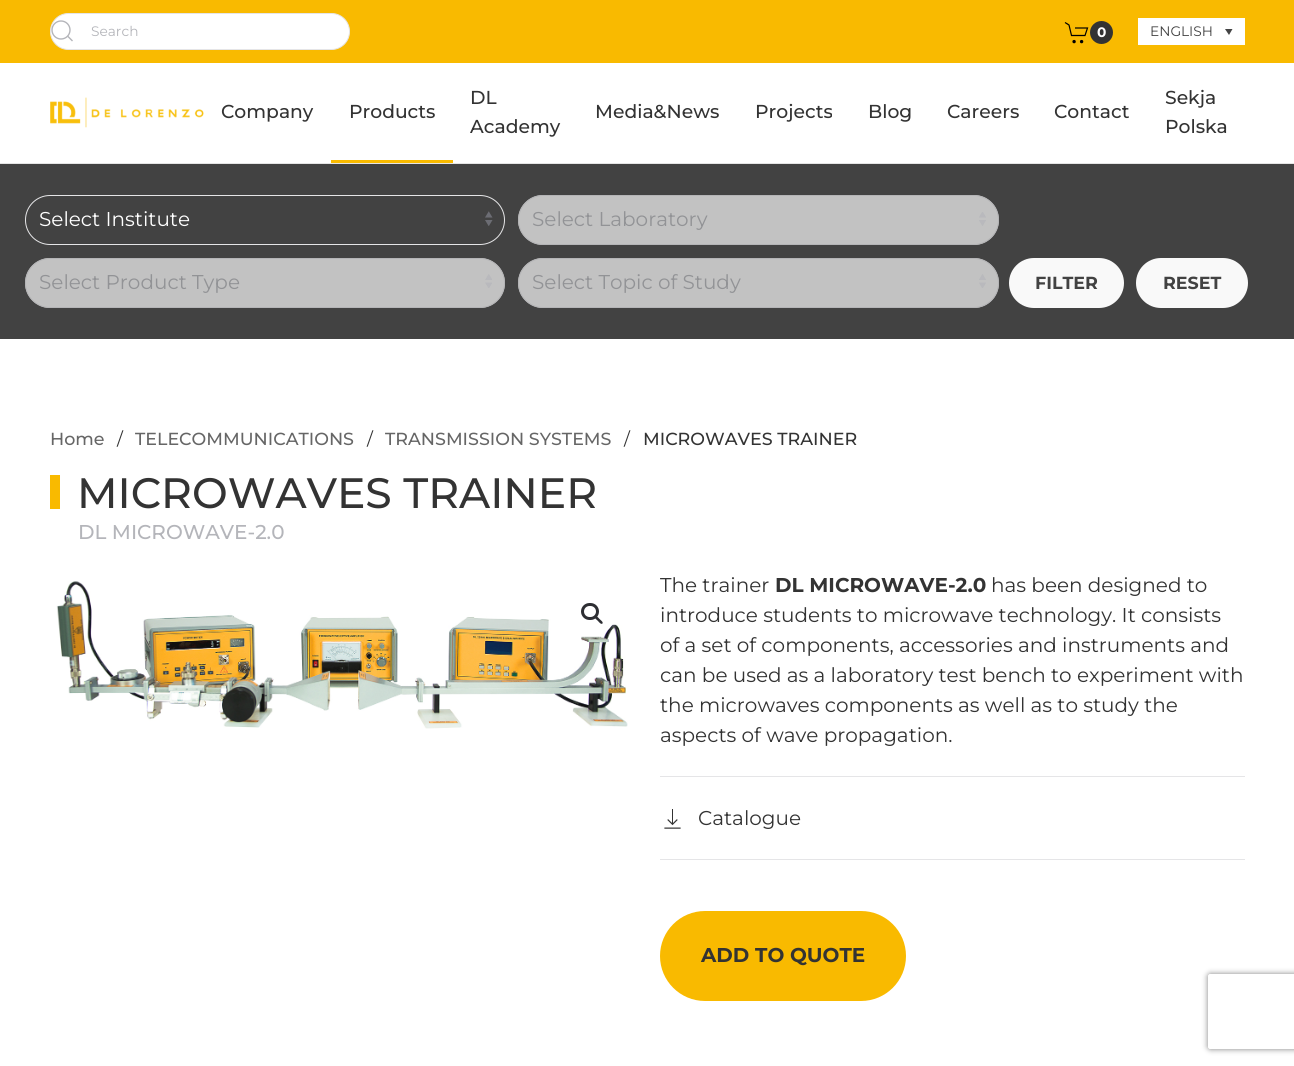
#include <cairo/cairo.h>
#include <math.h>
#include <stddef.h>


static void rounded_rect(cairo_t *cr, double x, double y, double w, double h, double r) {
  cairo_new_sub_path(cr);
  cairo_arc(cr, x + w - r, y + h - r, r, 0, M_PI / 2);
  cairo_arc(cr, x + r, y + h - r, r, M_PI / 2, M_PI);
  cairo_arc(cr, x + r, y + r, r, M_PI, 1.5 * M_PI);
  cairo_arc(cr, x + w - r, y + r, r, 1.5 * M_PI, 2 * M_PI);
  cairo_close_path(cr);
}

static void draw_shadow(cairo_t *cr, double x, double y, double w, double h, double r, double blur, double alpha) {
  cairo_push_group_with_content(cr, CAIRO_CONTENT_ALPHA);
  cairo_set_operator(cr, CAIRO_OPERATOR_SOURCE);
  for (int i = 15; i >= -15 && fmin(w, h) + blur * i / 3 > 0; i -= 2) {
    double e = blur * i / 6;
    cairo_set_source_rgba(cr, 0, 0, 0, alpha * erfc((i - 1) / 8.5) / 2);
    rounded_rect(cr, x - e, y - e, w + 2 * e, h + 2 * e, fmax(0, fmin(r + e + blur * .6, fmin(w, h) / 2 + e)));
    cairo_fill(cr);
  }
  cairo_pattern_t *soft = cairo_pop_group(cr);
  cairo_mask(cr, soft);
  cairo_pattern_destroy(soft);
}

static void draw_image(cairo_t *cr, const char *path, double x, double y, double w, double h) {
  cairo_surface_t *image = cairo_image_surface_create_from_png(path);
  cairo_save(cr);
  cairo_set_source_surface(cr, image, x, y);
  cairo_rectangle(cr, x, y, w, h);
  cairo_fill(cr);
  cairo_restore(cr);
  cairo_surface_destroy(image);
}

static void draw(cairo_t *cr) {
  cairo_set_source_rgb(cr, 1, 1, 1);
  cairo_paint(cr);
  cairo_set_source_rgb(cr, 249 / 255.0, 186 / 255.0, 0);
  cairo_rectangle(cr, 0, 0, 1294, 63);
  cairo_fill(cr);
  cairo_set_source_rgb(cr, 1, 1, 1);
  rounded_rect(cr, 50.5, 13.5, 299, 36, 18);
  cairo_fill_preserve(cr);
  cairo_set_source_rgb(cr, 229 / 255.0, 229 / 255.0, 231 / 255.0);
  cairo_set_line_width(cr, 1);
  cairo_stroke(cr);
  cairo_arc(cr, 61, 30, 9, 0, 2 * M_PI);
  cairo_set_source_rgb(cr, 180 / 255.0, 181 / 255.0, 186 / 255.0);
  cairo_set_line_width(cr, 1.4);
  cairo_stroke(cr);
  cairo_new_path(cr);
  cairo_move_to(cr, 67.5, 36);
  cairo_line_to(cr, 72.5, 41);
  cairo_close_path(cr);
  cairo_stroke(cr);
  cairo_new_path(cr);
  cairo_move_to(cr, 1065, 22.5);
  cairo_line_to(cr, 1069, 25);
  cairo_line_to(cr, 1071.5, 35.5);
  cairo_line_to(cr, 1085, 35.5);
  cairo_line_to(cr, 1087.5, 28);
  cairo_line_to(cr, 1075, 28);
  cairo_set_source_rgb(cr, 0, 0, 0);
  cairo_set_line_width(cr, 1.2);
  cairo_stroke(cr);
  cairo_set_source_rgb(cr, 51 / 255.0, 51 / 255.0, 51 / 255.0);
  cairo_arc(cr, 1101.5, 32.5, 11.5, 0, 2 * M_PI);
  cairo_fill(cr);
  cairo_set_source_rgb(cr, 0, 0, 0);
  cairo_arc(cr, 1074.1, 41.6, 1.7, 0, 2 * M_PI);
  cairo_fill(cr);
  cairo_arc(cr, 1081.6, 41.6, 1.7, 0, 2 * M_PI);
  cairo_fill(cr);
  cairo_set_source_rgb(cr, 1, 1, 1);
  cairo_rectangle(cr, 1138, 18, 107, 27);
  cairo_fill(cr);
  cairo_set_source_rgb(cr, 68 / 255.0, 68 / 255.0, 68 / 255.0);
  cairo_new_path(cr);
  cairo_move_to(cr, 1225, 29);
  cairo_line_to(cr, 1232.5, 29);
  cairo_line_to(cr, 1229, 35);
  cairo_close_path(cr);
  cairo_fill(cr);
  cairo_set_source_rgb(cr, 229 / 255.0, 229 / 255.0, 229 / 255.0);
  cairo_rectangle(cr, 0, 163, 1294, 1);
  cairo_fill(cr);
  draw_image(cr, "images/1.png", 50, 97, 154, 31);
  cairo_set_source_rgb(cr, 249 / 255.0, 186 / 255.0, 0);
  cairo_rectangle(cr, 331, 160, 122, 3);
  cairo_fill(cr);
  cairo_set_source_rgb(cr, 66 / 255.0, 66 / 255.0, 66 / 255.0);
  cairo_rectangle(cr, 0, 164, 1294, 175);
  cairo_fill(cr);
  draw_image(cr, "images/2.png", 485, 211, 8, 15);
  rounded_rect(cr, 25.5, 195.5, 479, 49, 24.5);
  cairo_set_source_rgb(cr, 229 / 255.0, 229 / 255.0, 231 / 255.0);
  cairo_set_line_width(cr, 1);
  cairo_stroke(cr);
  cairo_set_source_rgb(cr, 194 / 255.0, 194 / 255.0, 194 / 255.0);
  rounded_rect(cr, 518, 195, 481, 50, 25);
  cairo_fill(cr);
  draw_image(cr, "images/3.png", 979, 212, 7, 14);
  rounded_rect(cr, 518.5, 195.5, 480, 49, 24.5);
  cairo_set_source_rgb(cr, 180 / 255.0, 180 / 255.0, 182 / 255.0);
  cairo_stroke(cr);
  cairo_set_source_rgb(cr, 194 / 255.0, 194 / 255.0, 194 / 255.0);
  rounded_rect(cr, 25, 258, 480, 50, 25);
  cairo_fill(cr);
  draw_image(cr, "images/4.png", 485, 274, 7, 14);
  rounded_rect(cr, 25.5, 258.5, 479, 49, 24.5);
  cairo_set_source_rgb(cr, 180 / 255.0, 180 / 255.0, 182 / 255.0);
  cairo_stroke(cr);
  cairo_set_source_rgb(cr, 194 / 255.0, 194 / 255.0, 194 / 255.0);
  rounded_rect(cr, 518, 258, 481, 50, 25);
  cairo_fill(cr);
  draw_image(cr, "images/5.png", 979, 274, 7, 14);
  rounded_rect(cr, 518.5, 258.5, 480, 49, 24.5);
  cairo_set_source_rgb(cr, 180 / 255.0, 180 / 255.0, 182 / 255.0);
  cairo_stroke(cr);
  cairo_set_source_rgb(cr, 249 / 255.0, 249 / 255.0, 249 / 255.0);
  rounded_rect(cr, 1009, 258, 115, 50, 25);
  cairo_fill(cr);
  rounded_rect(cr, 1136, 258, 112, 50, 25);
  cairo_fill(cr);
  cairo_set_source_rgb(cr, 249 / 255.0, 186 / 255.0, 0);
  cairo_rectangle(cr, 50, 475, 10, 34);
  cairo_fill(cr);
  draw_image(cr, "images/6.png", 56, 581, 572, 148);
  cairo_set_source_rgb(cr, 1, 1, 1);
  cairo_arc(cr, 592.5, 613.5, 22.5, 0, 2 * M_PI);
  cairo_fill(cr);
  rounded_rect(cr, 582.5, 604.5, 15, 14, 7);
  cairo_set_source_rgb(cr, 45 / 255.0, 46 / 255.0, 51 / 255.0);
  cairo_set_line_width(cr, 3);
  cairo_stroke(cr);
  cairo_new_path(cr);
  cairo_move_to(cr, 595, 616.5);
  cairo_curve_to(cr, 596.5, 615, 599, 618.5, 599.5, 619);
  cairo_curve_to(cr, 600.5, 620, 603.5, 622, 602.5, 623.5);
  cairo_curve_to(cr, 601, 625, 598.5, 621.5, 598, 621);
  cairo_curve_to(cr, 597, 620, 594, 618, 595, 616.5);
  cairo_close_path(cr);
  cairo_fill(cr);
  cairo_set_source_rgb(cr, 229 / 255.0, 229 / 255.0, 231 / 255.0);
  cairo_rectangle(cr, 660, 776, 585, 1);
  cairo_fill(cr);
  draw_image(cr, "images/7.png", 664, 809, 17, 20);
  cairo_rectangle(cr, 660, 859, 585, 1);
  cairo_fill(cr);
  cairo_set_source_rgb(cr, 249 / 255.0, 186 / 255.0, 0);
  rounded_rect(cr, 660, 911, 246, 90, 45);
  cairo_fill(cr);
  cairo_save(cr);
  cairo_set_fill_rule(cr, CAIRO_FILL_RULE_EVEN_ODD);
  cairo_new_path(cr);
  cairo_move_to(cr, 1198, 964);
  cairo_line_to(cr, 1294, 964);
  cairo_line_to(cr, 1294, 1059);
  cairo_line_to(cr, 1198, 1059);
  cairo_close_path(cr);
  cairo_move_to(cr, 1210.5, 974);
  cairo_line_to(cr, 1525.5, 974);
  cairo_curve_to(cr, 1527, 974, 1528, 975, 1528, 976.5);
  cairo_line_to(cr, 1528, 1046.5);
  cairo_curve_to(cr, 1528, 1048, 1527, 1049, 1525.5, 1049);
  cairo_line_to(cr, 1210.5, 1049);
  cairo_curve_to(cr, 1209, 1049, 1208, 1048, 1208, 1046.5);
  cairo_line_to(cr, 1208, 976.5);
  cairo_curve_to(cr, 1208, 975, 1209, 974, 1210.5, 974);
  cairo_close_path(cr);
  cairo_clip(cr);
  cairo_set_source_rgb(cr, 128 / 255.0, 128 / 255.0, 128 / 255.0);
  draw_shadow(cr, 1208, 974, 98, 75, 2.5, 3, 1);
  cairo_restore(cr);
  cairo_select_font_face(cr, "Montserrat Thin", CAIRO_FONT_SLANT_NORMAL, CAIRO_FONT_WEIGHT_NORMAL);
  cairo_set_font_size(cr, 13.75);
  cairo_set_source_rgb(cr, 180 / 255.0, 181 / 255.0, 186 / 255.0);
  cairo_move_to(cr, 91, 36);
  cairo_show_text(cr, "Search");
  cairo_select_font_face(cr, "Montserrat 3 Thin", CAIRO_FONT_SLANT_NORMAL, CAIRO_FONT_WEIGHT_NORMAL);
  cairo_set_source_rgb(cr, 1, 1, 1);
  cairo_move_to(cr, 1097, 37);
  cairo_show_text(cr, "0");
  cairo_select_font_face(cr, "Montserrat Thin", CAIRO_FONT_SLANT_NORMAL, CAIRO_FONT_WEIGHT_NORMAL);
  cairo_set_source_rgb(cr, 66 / 255.0, 66 / 255.0, 66 / 255.0);
  cairo_move_to(cr, 1150, 36);
  cairo_show_text(cr, "ENGLISH");
  cairo_select_font_face(cr, "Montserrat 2 Thin", CAIRO_FONT_SLANT_NORMAL, CAIRO_FONT_WEIGHT_NORMAL);
  cairo_set_font_size(cr, 18.75);
  cairo_set_source_rgb(cr, 51 / 255.0, 51 / 255.0, 51 / 255.0);
  cairo_move_to(cr, 221, 118);
  cairo_show_text(cr, "Company");
  cairo_move_to(cr, 349, 118);
  cairo_show_text(cr, "Products");
  cairo_move_to(cr, 470, 104);
  cairo_show_text(cr, "DL");
  cairo_move_to(cr, 470, 133);
  cairo_show_text(cr, "Academy");
  cairo_move_to(cr, 595, 118);
  cairo_show_text(cr, "Media&News");
  cairo_move_to(cr, 755, 118);
  cairo_show_text(cr, "Projects");
  cairo_move_to(cr, 868, 118);
  cairo_show_text(cr, "Blog");
  cairo_move_to(cr, 947, 118);
  cairo_show_text(cr, "Careers");
  cairo_move_to(cr, 1054, 118);
  cairo_show_text(cr, "Contact");
  cairo_move_to(cr, 1165, 104);
  cairo_show_text(cr, "Sekja");
  cairo_move_to(cr, 1165, 133);
  cairo_show_text(cr, "Polska");
  cairo_select_font_face(cr, "Montserrat Thin", CAIRO_FONT_SLANT_NORMAL, CAIRO_FONT_WEIGHT_NORMAL);
  cairo_set_font_size(cr, 20);
  cairo_set_source_rgb(cr, 1, 1, 1);
  cairo_move_to(cr, 39, 226);
  cairo_show_text(cr, "Select Institute");
  cairo_set_source_rgb(cr, 146 / 255.0, 147 / 255.0, 150 / 255.0);
  cairo_move_to(cr, 532, 226);
  cairo_show_text(cr, "Select Laboratory");
  cairo_move_to(cr, 39, 289);
  cairo_show_text(cr, "Select Product Type");
  cairo_move_to(cr, 532, 289);
  cairo_show_text(cr, "Select Topic of Study");
  cairo_select_font_face(cr, "Montserrat 3 Thin", CAIRO_FONT_SLANT_NORMAL, CAIRO_FONT_WEIGHT_NORMAL);
  cairo_set_font_size(cr, 17.5);
  cairo_set_source_rgb(cr, 66 / 255.0, 66 / 255.0, 66 / 255.0);
  cairo_move_to(cr, 1035, 289);
  cairo_show_text(cr, "FILTER");
  cairo_move_to(cr, 1163, 289);
  cairo_show_text(cr, "RESET");
  cairo_select_font_face(cr, "Montserrat 2 Thin", CAIRO_FONT_SLANT_NORMAL, CAIRO_FONT_WEIGHT_NORMAL);
  cairo_set_source_rgb(cr, 102 / 255.0, 102 / 255.0, 102 / 255.0);
  cairo_move_to(cr, 50, 445);
  cairo_show_text(cr, "Home");
  cairo_select_font_face(cr, "Montserrat Thin", CAIRO_FONT_SLANT_NORMAL, CAIRO_FONT_WEIGHT_NORMAL);
  cairo_set_source_rgb(cr, 51 / 255.0, 51 / 255.0, 51 / 255.0);
  cairo_move_to(cr, 117, 445);
  cairo_show_text(cr, "/");
  cairo_select_font_face(cr, "Montserrat 2 Thin", CAIRO_FONT_SLANT_NORMAL, CAIRO_FONT_WEIGHT_NORMAL);
  cairo_set_source_rgb(cr, 102 / 255.0, 102 / 255.0, 102 / 255.0);
  cairo_move_to(cr, 135, 445);
  cairo_show_text(cr, "TELECOMMUNICATIONS");
  cairo_select_font_face(cr, "Montserrat Thin", CAIRO_FONT_SLANT_NORMAL, CAIRO_FONT_WEIGHT_NORMAL);
  cairo_set_source_rgb(cr, 51 / 255.0, 51 / 255.0, 51 / 255.0);
  cairo_move_to(cr, 367, 445);
  cairo_show_text(cr, "/");
  cairo_select_font_face(cr, "Montserrat 2 Thin", CAIRO_FONT_SLANT_NORMAL, CAIRO_FONT_WEIGHT_NORMAL);
  cairo_set_source_rgb(cr, 102 / 255.0, 102 / 255.0, 102 / 255.0);
  cairo_move_to(cr, 385, 445);
  cairo_show_text(cr, "TRANSMISSION SYSTEMS");
  cairo_select_font_face(cr, "Montserrat Thin", CAIRO_FONT_SLANT_NORMAL, CAIRO_FONT_WEIGHT_NORMAL);
  cairo_set_source_rgb(cr, 51 / 255.0, 51 / 255.0, 51 / 255.0);
  cairo_move_to(cr, 624, 445);
  cairo_show_text(cr, "/");
  cairo_select_font_face(cr, "Montserrat 2 Thin", CAIRO_FONT_SLANT_NORMAL, CAIRO_FONT_WEIGHT_NORMAL);
  cairo_move_to(cr, 643, 445);
  cairo_show_text(cr, "MICROWAVES TRAINER");
  cairo_set_font_size(cr, 42.5);
  cairo_move_to(cr, 77, 508);
  cairo_show_text(cr, "MICROWAVES TRAINER");
  cairo_set_font_size(cr, 20);
  cairo_set_source_rgb(cr, 180 / 255.0, 181 / 255.0, 186 / 255.0);
  cairo_move_to(cr, 78, 539);
  cairo_show_text(cr, "DL MICROWAVE-2.0");
  cairo_select_font_face(cr, "Montserrat Thin", CAIRO_FONT_SLANT_NORMAL, CAIRO_FONT_WEIGHT_NORMAL);
  cairo_set_source_rgb(cr, 51 / 255.0, 51 / 255.0, 51 / 255.0);
  cairo_move_to(cr, 660, 592);
  cairo_show_text(cr, "The trainer");
  cairo_select_font_face(cr, "Montserrat 3 Thin", CAIRO_FONT_SLANT_NORMAL, CAIRO_FONT_WEIGHT_NORMAL);
  cairo_move_to(cr, 775, 592);
  cairo_show_text(cr, "DL MICROWAVE-2.0");
  cairo_select_font_face(cr, "Montserrat Thin", CAIRO_FONT_SLANT_NORMAL, CAIRO_FONT_WEIGHT_NORMAL);
  cairo_move_to(cr, 991, 592);
  cairo_show_text(cr, "has been designed to");
  cairo_move_to(cr, 660, 622);
  cairo_show_text(cr, "introduce students to microwave technology. It consists");
  cairo_move_to(cr, 660, 652);
  cairo_show_text(cr, "of a set of components, accessories and instruments and");
  cairo_move_to(cr, 660, 682);
  cairo_show_text(cr, "can be used as a laboratory test bench to experiment with");
  cairo_move_to(cr, 660, 712);
  cairo_show_text(cr, "the microwaves components as well as to study the");
  cairo_move_to(cr, 660, 742);
  cairo_show_text(cr, "aspects of wave propagation.");
  cairo_move_to(cr, 698, 825);
  cairo_show_text(cr, "Catalogue");
  cairo_select_font_face(cr, "Montserrat 3 Thin", CAIRO_FONT_SLANT_NORMAL, CAIRO_FONT_WEIGHT_NORMAL);
  cairo_move_to(cr, 701, 962);
  cairo_show_text(cr, "ADD TO QUOTE");
}

int main(void) {
  cairo_surface_t *surface = cairo_image_surface_create(CAIRO_FORMAT_RGB24, 1294, 1066);
  cairo_t *cr = cairo_create(surface);
  cairo_font_options_t *options = cairo_font_options_create();
  cairo_font_options_set_hint_metrics(options, CAIRO_HINT_METRICS_OFF);
  cairo_font_options_set_hint_style(options, CAIRO_HINT_STYLE_NONE);
  cairo_set_font_options(cr, options);
  cairo_set_miter_limit(cr, 4);
  draw(cr);
  cairo_surface_write_to_png(surface, "out.png");
  cairo_font_options_destroy(options);
  cairo_destroy(cr);
  cairo_surface_destroy(surface);
  return 0;
}
